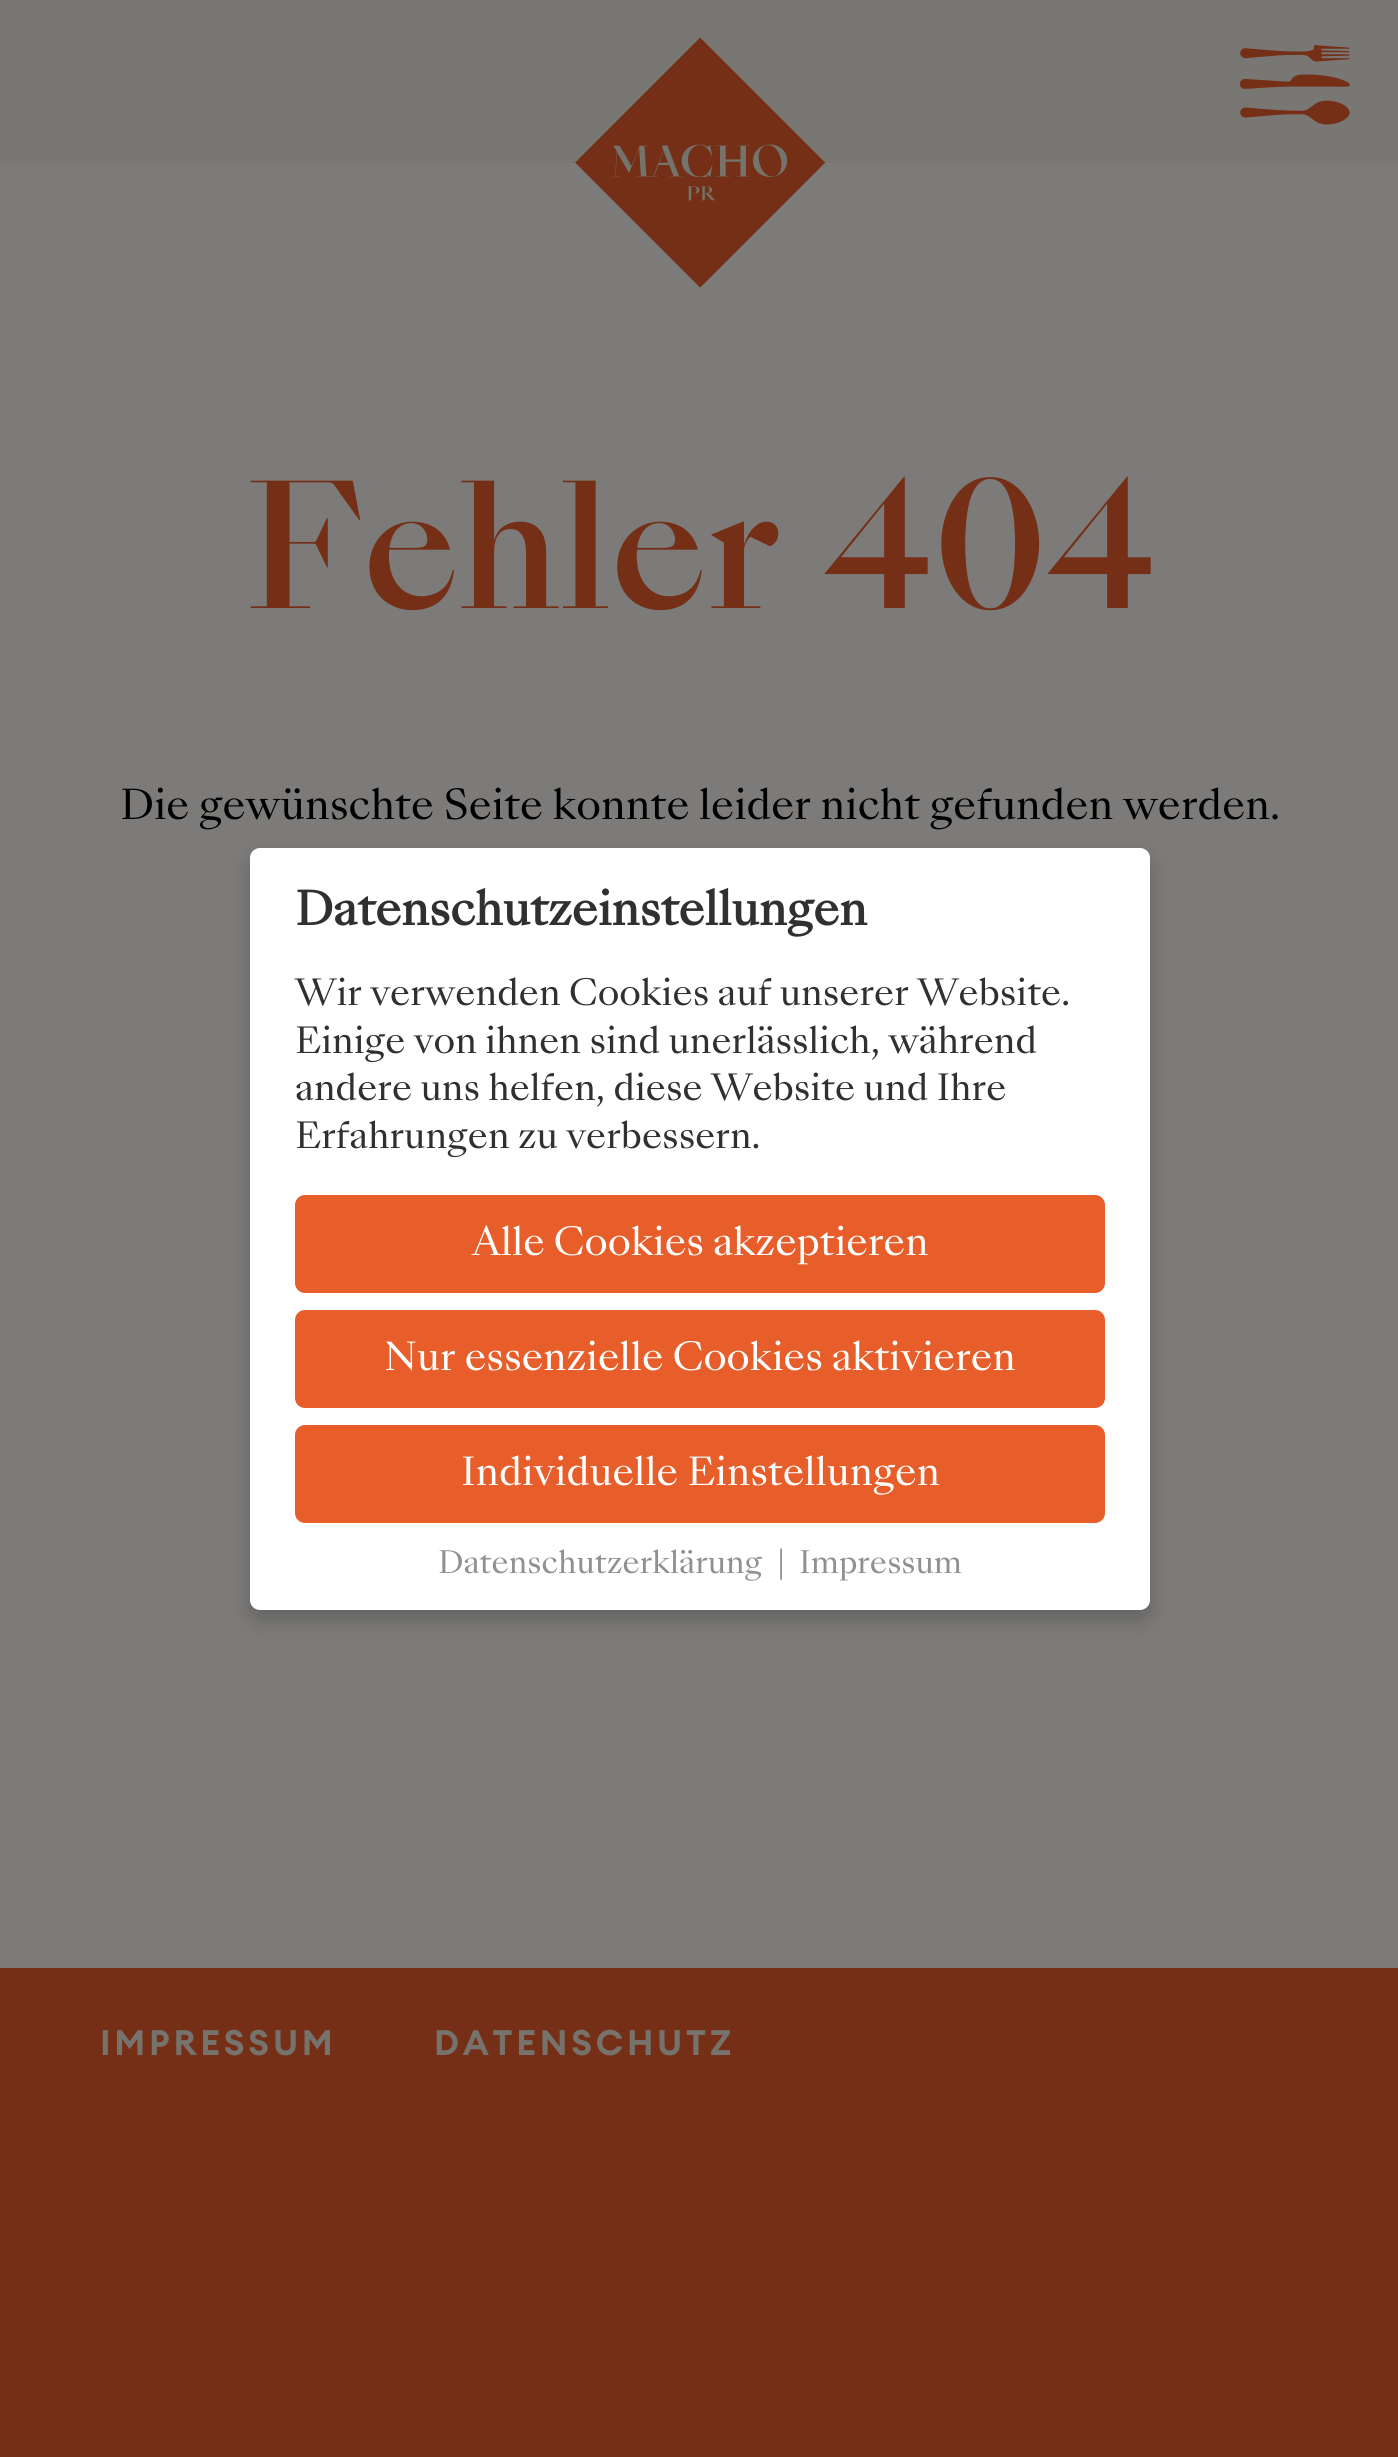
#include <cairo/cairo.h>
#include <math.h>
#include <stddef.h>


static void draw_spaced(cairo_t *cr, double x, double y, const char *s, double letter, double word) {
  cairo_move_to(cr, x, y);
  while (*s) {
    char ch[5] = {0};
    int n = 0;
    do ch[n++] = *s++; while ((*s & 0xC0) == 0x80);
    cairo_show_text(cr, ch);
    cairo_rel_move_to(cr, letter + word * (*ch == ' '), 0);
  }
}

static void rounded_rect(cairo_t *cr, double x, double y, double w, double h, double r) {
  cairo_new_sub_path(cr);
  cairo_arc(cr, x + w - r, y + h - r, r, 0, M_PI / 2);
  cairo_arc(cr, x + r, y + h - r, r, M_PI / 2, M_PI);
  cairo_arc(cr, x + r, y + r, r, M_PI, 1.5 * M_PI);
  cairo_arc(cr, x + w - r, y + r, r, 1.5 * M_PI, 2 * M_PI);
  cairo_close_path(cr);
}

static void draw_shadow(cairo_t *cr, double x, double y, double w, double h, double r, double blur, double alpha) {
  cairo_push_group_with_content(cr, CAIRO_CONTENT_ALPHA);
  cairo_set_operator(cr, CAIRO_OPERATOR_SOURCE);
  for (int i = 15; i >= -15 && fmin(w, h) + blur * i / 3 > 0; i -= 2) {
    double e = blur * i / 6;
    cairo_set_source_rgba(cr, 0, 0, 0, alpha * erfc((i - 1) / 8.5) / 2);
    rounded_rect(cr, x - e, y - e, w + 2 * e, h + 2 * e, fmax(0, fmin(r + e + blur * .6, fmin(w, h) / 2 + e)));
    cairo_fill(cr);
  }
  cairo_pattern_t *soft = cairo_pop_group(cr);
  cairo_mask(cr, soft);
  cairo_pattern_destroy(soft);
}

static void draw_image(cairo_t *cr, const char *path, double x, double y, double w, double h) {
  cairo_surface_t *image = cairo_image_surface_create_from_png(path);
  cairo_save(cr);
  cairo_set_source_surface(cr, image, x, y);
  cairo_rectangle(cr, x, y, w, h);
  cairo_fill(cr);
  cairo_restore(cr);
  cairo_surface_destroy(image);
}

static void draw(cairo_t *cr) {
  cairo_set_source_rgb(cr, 124 / 255.0, 123 / 255.0, 122 / 255.0);
  cairo_paint(cr);
  cairo_set_source_rgb(cr, 121 / 255.0, 119 / 255.0, 116 / 255.0);
  cairo_rectangle(cr, 0, 0, 1398, 163);
  cairo_fill(cr);
  draw_image(cr, "images/1.png", 575, 38, 250, 250);
  draw_image(cr, "images/2.png", 1240, 44, 110, 81);
  cairo_set_source_rgb(cr, 0, 0, 0);
  draw_shadow(cr, 250, 858, 900, 762, 10, 10, 0.2);
  cairo_set_source_rgb(cr, 1, 1, 1);
  rounded_rect(cr, 250, 848, 900, 762, 10);
  cairo_fill(cr);
  cairo_set_source_rgb(cr, 231 / 255.0, 94 / 255.0, 43 / 255.0);
  rounded_rect(cr, 295, 1195, 810, 98, 10);
  cairo_fill(cr);
  rounded_rect(cr, 295, 1310, 810, 98, 10);
  cairo_fill(cr);
  rounded_rect(cr, 295, 1425, 810, 98, 10);
  cairo_fill(cr);
  cairo_set_source_rgb(cr, 116 / 255.0, 47 / 255.0, 22 / 255.0);
  cairo_rectangle(cr, 0, 1968, 1398, 489);
  cairo_fill(cr);
  cairo_select_font_face(cr, "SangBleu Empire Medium", CAIRO_FONT_SLANT_NORMAL, CAIRO_FONT_WEIGHT_NORMAL);
  cairo_set_font_size(cr, 168);
  cairo_move_to(cr, 244, 608);
  cairo_show_text(cr, "Fehler 404");
  cairo_select_font_face(cr, "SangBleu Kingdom", CAIRO_FONT_SLANT_NORMAL, CAIRO_FONT_WEIGHT_NORMAL);
  cairo_set_font_size(cr, 40);
  cairo_set_source_rgb(cr, 0, 0, 0);
  cairo_move_to(cr, 120, 819);
  cairo_show_text(cr, "Die gewünschte Seite konnte leider nicht gefunden werden.");
  cairo_select_font_face(cr, "SangBleu Kingdom", CAIRO_FONT_SLANT_NORMAL, CAIRO_FONT_WEIGHT_BOLD);
  cairo_set_font_size(cr, 45);
  cairo_set_source_rgb(cr, 48 / 255.0, 48 / 255.0, 48 / 255.0);
  cairo_move_to(cr, 295, 925);
  cairo_show_text(cr, "Datenschutzeinstellungen");
  cairo_select_font_face(cr, "SangBleu Kingdom", CAIRO_FONT_SLANT_NORMAL, CAIRO_FONT_WEIGHT_NORMAL);
  cairo_set_font_size(cr, 35);
  cairo_move_to(cr, 295, 1005);
  cairo_show_text(cr, "Wir verwenden Cookies auf unserer Website.");
  cairo_move_to(cr, 295, 1053);
  cairo_show_text(cr, "Einige von ihnen sind unerlässlich, während");
  cairo_move_to(cr, 295, 1100);
  cairo_show_text(cr, "andere uns helfen, diese Website und Ihre");
  cairo_move_to(cr, 295, 1148);
  cairo_show_text(cr, "Erfahrungen zu verbessern.");
  cairo_set_font_size(cr, 37.5);
  cairo_set_source_rgb(cr, 1, 1, 1);
  cairo_move_to(cr, 472, 1255);
  cairo_show_text(cr, "Alle Cookies akzeptieren");
  cairo_move_to(cr, 384, 1370);
  cairo_show_text(cr, "Nur essenzielle Cookies aktivieren");
  cairo_move_to(cr, 461, 1485);
  cairo_show_text(cr, "Individuelle Einstellungen");
  cairo_set_font_size(cr, 30);
  cairo_set_source_rgb(cr, 144 / 255.0, 144 / 255.0, 144 / 255.0);
  cairo_move_to(cr, 438, 1573);
  cairo_show_text(cr, "Datenschutzerklärung");
  cairo_move_to(cr, 777, 1573);
  cairo_show_text(cr, "|");
  cairo_move_to(cr, 799, 1573);
  cairo_show_text(cr, "Impressum");
  cairo_select_font_face(cr, "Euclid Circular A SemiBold", CAIRO_FONT_SLANT_NORMAL, CAIRO_FONT_WEIGHT_NORMAL);
  cairo_set_font_size(cr, 35);
  cairo_set_source_rgb(cr, 118 / 255.0, 114 / 255.0, 108 / 255.0);
  draw_spaced(cr, 100, 2055, "IMPRESSUM", 3.75, 0);
  draw_spaced(cr, 434, 2055, "DATENSCHUTZ", 3.75, 0);
}

int main(void) {
  cairo_surface_t *surface = cairo_image_surface_create(CAIRO_FORMAT_RGB24, 1398, 2457);
  cairo_t *cr = cairo_create(surface);
  cairo_font_options_t *options = cairo_font_options_create();
  cairo_font_options_set_hint_metrics(options, CAIRO_HINT_METRICS_OFF);
  cairo_font_options_set_hint_style(options, CAIRO_HINT_STYLE_NONE);
  cairo_set_font_options(cr, options);
  cairo_set_miter_limit(cr, 4);
  draw(cr);
  cairo_surface_write_to_png(surface, "out.png");
  cairo_font_options_destroy(options);
  cairo_destroy(cr);
  cairo_surface_destroy(surface);
  return 0;
}
